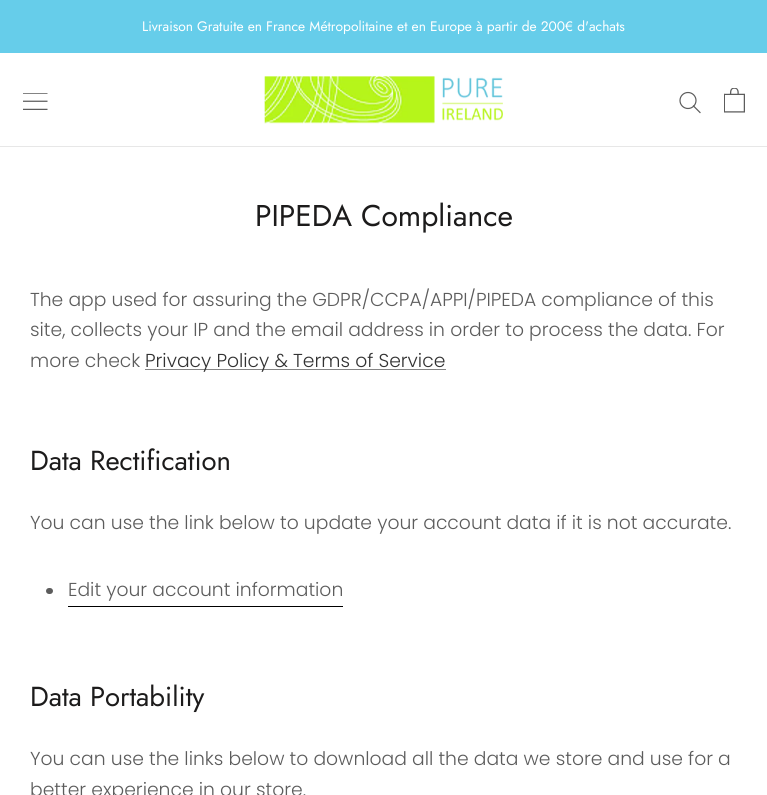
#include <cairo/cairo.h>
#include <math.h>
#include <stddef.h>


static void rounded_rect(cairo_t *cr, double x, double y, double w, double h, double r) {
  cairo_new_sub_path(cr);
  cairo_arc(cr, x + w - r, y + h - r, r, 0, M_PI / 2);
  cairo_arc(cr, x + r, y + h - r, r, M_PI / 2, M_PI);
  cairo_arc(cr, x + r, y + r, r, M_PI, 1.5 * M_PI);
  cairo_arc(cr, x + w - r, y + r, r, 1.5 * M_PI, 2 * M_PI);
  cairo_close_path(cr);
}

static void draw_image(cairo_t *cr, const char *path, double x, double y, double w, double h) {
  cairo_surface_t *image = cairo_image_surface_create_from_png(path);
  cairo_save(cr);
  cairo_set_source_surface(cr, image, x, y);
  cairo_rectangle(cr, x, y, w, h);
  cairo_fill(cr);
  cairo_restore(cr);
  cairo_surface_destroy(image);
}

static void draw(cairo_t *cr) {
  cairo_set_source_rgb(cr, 1, 1, 1);
  cairo_paint(cr);
  cairo_set_source_rgb(cr, 102 / 255.0, 205 / 255.0, 234 / 255.0);
  cairo_rectangle(cr, 0, 0, 767, 53);
  cairo_fill(cr);
  cairo_set_source_rgb(cr, 231 / 255.0, 231 / 255.0, 231 / 255.0);
  cairo_rectangle(cr, 0, 146, 767, 1);
  cairo_fill(cr);
  draw_image(cr, "images/1.png", 23, 93, 25, 17);
  draw_image(cr, "images/2.png", 264, 76, 239, 48);
  cairo_new_path(cr);
  cairo_move_to(cr, 700, 112.5);
  cairo_line_to(cr, 693.5, 106);
  cairo_set_source_rgb(cr, 92 / 255.0, 92 / 255.0, 92 / 255.0);
  cairo_set_line_width(cr, 1.2);
  cairo_set_line_cap(cr, CAIRO_LINE_CAP_SQUARE);
  cairo_stroke(cr);
  cairo_arc(cr, 688, 100.5, 8, 0, 2 * M_PI);
  cairo_set_line_cap(cr, CAIRO_LINE_CAP_BUTT);
  cairo_stroke(cr);
  draw_image(cr, "images/3.png", 724, 88, 21, 25);
  cairo_set_source_rgb(cr, 132 / 255.0, 132 / 255.0, 132 / 255.0);
  cairo_rectangle(cr, 145, 369, 301, 1);
  cairo_fill(cr);
  cairo_set_source_rgb(cr, 92 / 255.0, 92 / 255.0, 92 / 255.0);
  rounded_rect(cr, 46, 588, 7, 6, 3);
  cairo_fill(cr);
  cairo_set_source_rgb(cr, 0, 0, 0);
  cairo_rectangle(cr, 68, 606, 275, 1);
  cairo_fill(cr);
  cairo_select_font_face(cr, "Jost", CAIRO_FONT_SLANT_NORMAL, CAIRO_FONT_WEIGHT_NORMAL);
  cairo_set_font_size(cr, 13.75);
  cairo_set_source_rgb(cr, 1, 1, 1);
  cairo_move_to(cr, 142, 31);
  cairo_show_text(cr, "Livraison Gratuite en France Métropolitaine et en Europe à partir de 200€ d'achats");
  cairo_set_font_size(cr, 30);
  cairo_set_source_rgb(cr, 28 / 255.0, 27 / 255.0, 27 / 255.0);
  cairo_move_to(cr, 255, 226);
  cairo_show_text(cr, "PIPEDA Compliance");
  cairo_select_font_face(cr, "Poppins Light", CAIRO_FONT_SLANT_NORMAL, CAIRO_FONT_WEIGHT_NORMAL);
  cairo_set_font_size(cr, 18.75);
  cairo_set_source_rgb(cr, 92 / 255.0, 92 / 255.0, 92 / 255.0);
  cairo_move_to(cr, 30, 306);
  cairo_show_text(cr, "The app used for assuring the GDPR/CCPA/APPI/PIPEDA compliance of this");
  cairo_move_to(cr, 30, 336);
  cairo_show_text(cr, "site, collects your IP and the email address in order to process the data. For");
  cairo_move_to(cr, 30, 367);
  cairo_show_text(cr, "more check");
  cairo_set_source_rgb(cr, 50 / 255.0, 50 / 255.0, 50 / 255.0);
  cairo_move_to(cr, 145, 367);
  cairo_show_text(cr, "Privacy Policy & Terms of Service");
  cairo_select_font_face(cr, "Jost", CAIRO_FONT_SLANT_NORMAL, CAIRO_FONT_WEIGHT_NORMAL);
  cairo_set_font_size(cr, 27.5);
  cairo_set_source_rgb(cr, 28 / 255.0, 27 / 255.0, 27 / 255.0);
  cairo_move_to(cr, 30, 470);
  cairo_show_text(cr, "Data Rectification");
  cairo_select_font_face(cr, "Poppins Light", CAIRO_FONT_SLANT_NORMAL, CAIRO_FONT_WEIGHT_NORMAL);
  cairo_set_font_size(cr, 18.75);
  cairo_set_source_rgb(cr, 92 / 255.0, 92 / 255.0, 92 / 255.0);
  cairo_move_to(cr, 30, 529);
  cairo_show_text(cr, "You can use the link below to update your account data if it is not accurate.");
  cairo_move_to(cr, 68, 596);
  cairo_show_text(cr, "Edit your account information");
  cairo_select_font_face(cr, "Jost", CAIRO_FONT_SLANT_NORMAL, CAIRO_FONT_WEIGHT_NORMAL);
  cairo_set_font_size(cr, 27.5);
  cairo_set_source_rgb(cr, 28 / 255.0, 27 / 255.0, 27 / 255.0);
  cairo_move_to(cr, 30, 706);
  cairo_show_text(cr, "Data Portability");
  cairo_select_font_face(cr, "Poppins Light", CAIRO_FONT_SLANT_NORMAL, CAIRO_FONT_WEIGHT_NORMAL);
  cairo_set_font_size(cr, 18.75);
  cairo_set_source_rgb(cr, 92 / 255.0, 92 / 255.0, 92 / 255.0);
  cairo_move_to(cr, 30, 765);
  cairo_show_text(cr, "You can use the links below to download all the data we store and use for a");
  cairo_move_to(cr, 30, 796);
  cairo_show_text(cr, "better experience in our store.");
}

int main(void) {
  cairo_surface_t *surface = cairo_image_surface_create(CAIRO_FORMAT_RGB24, 767, 795);
  cairo_t *cr = cairo_create(surface);
  cairo_font_options_t *options = cairo_font_options_create();
  cairo_font_options_set_hint_metrics(options, CAIRO_HINT_METRICS_OFF);
  cairo_font_options_set_hint_style(options, CAIRO_HINT_STYLE_NONE);
  cairo_set_font_options(cr, options);
  cairo_set_miter_limit(cr, 4);
  draw(cr);
  cairo_surface_write_to_png(surface, "out.png");
  cairo_font_options_destroy(options);
  cairo_destroy(cr);
  cairo_surface_destroy(surface);
  return 0;
}
